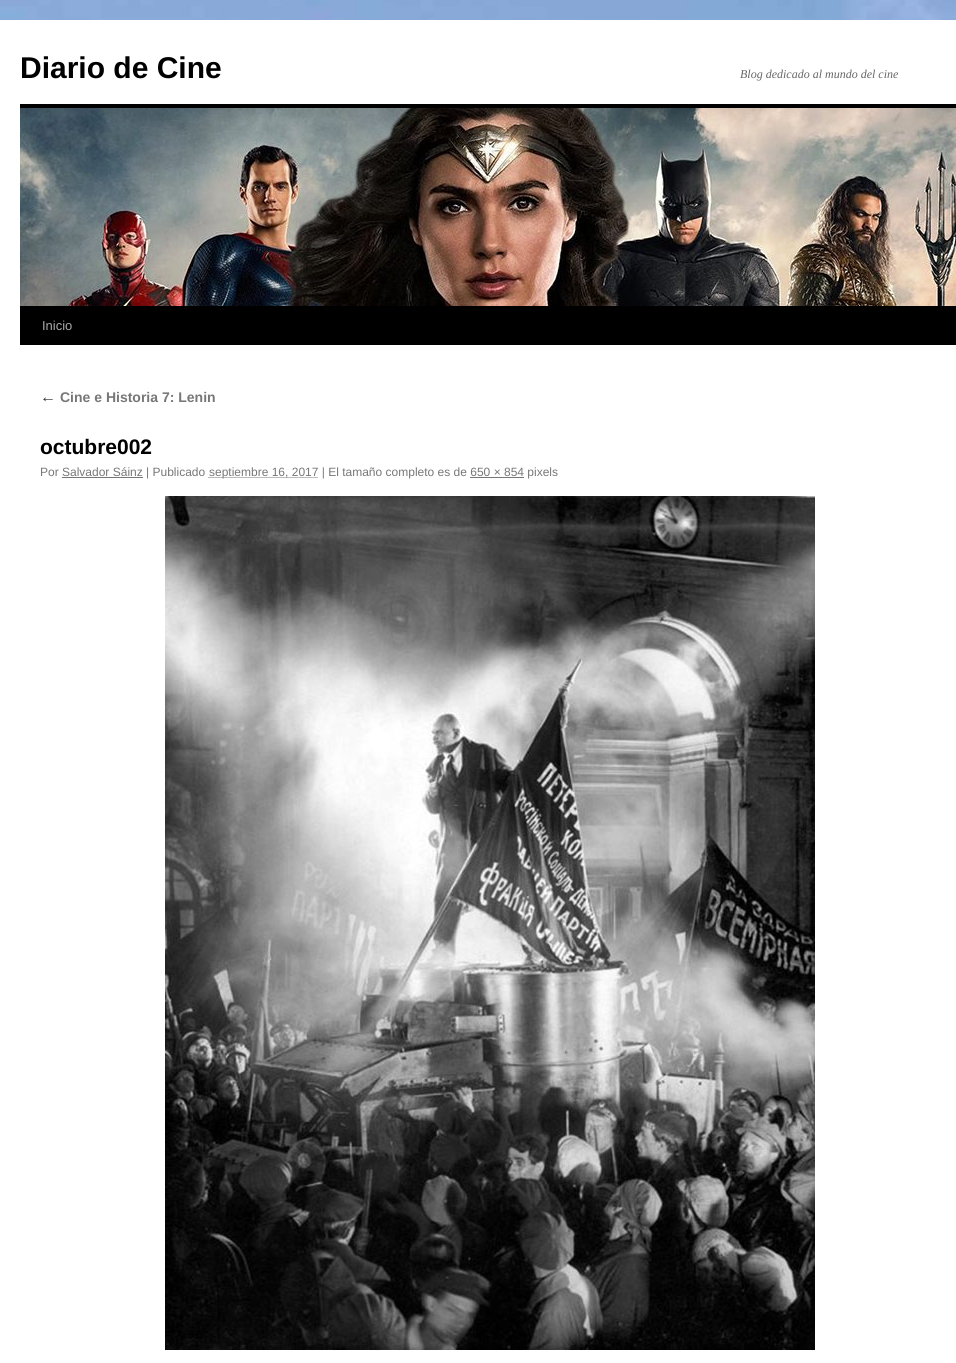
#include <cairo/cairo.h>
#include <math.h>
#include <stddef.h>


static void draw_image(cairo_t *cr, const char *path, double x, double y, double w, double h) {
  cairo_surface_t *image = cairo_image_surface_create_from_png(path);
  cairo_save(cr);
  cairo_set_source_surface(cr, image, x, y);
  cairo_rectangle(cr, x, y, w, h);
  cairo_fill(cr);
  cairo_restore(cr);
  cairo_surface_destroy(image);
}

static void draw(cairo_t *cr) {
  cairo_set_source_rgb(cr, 1, 1, 1);
  cairo_paint(cr);
  draw_image(cr, "images/1.png", 0, 0, 956, 20);
  cairo_set_source_rgb(cr, 0, 0, 0);
  cairo_rectangle(cr, 20, 104, 936, 4);
  cairo_fill(cr);
  cairo_rectangle(cr, 20, 306, 936, 39);
  cairo_fill(cr);
  draw_image(cr, "images/2.png", 20, 108, 936, 198);
  cairo_new_path(cr);
  cairo_move_to(cr, 208.5, 477.5);
  cairo_line_to(cr, 318, 477.5);
  cairo_set_source_rgb(cr, 119 / 255.0, 119 / 255.0, 119 / 255.0);
  cairo_set_line_width(cr, 1);
  cairo_set_dash(cr, (double[]){1, 1}, 2, 0);
  cairo_stroke(cr);
  cairo_rectangle(cr, 62, 477, 81, 1);
  cairo_fill(cr);
  cairo_rectangle(cr, 470, 477, 54, 1);
  cairo_fill(cr);
  draw_image(cr, "images/3.png", 165, 496, 650, 854);
  cairo_select_font_face(cr, "Liberation Sans", CAIRO_FONT_SLANT_NORMAL, CAIRO_FONT_WEIGHT_BOLD);
  cairo_set_font_size(cr, 30);
  cairo_set_source_rgb(cr, 0, 0, 0);
  cairo_move_to(cr, 20, 78);
  cairo_show_text(cr, "Diario de Cine");
  cairo_select_font_face(cr, "Liberation Serif", CAIRO_FONT_SLANT_ITALIC, CAIRO_FONT_WEIGHT_NORMAL);
  cairo_set_font_size(cr, 12);
  cairo_set_source_rgb(cr, 102 / 255.0, 102 / 255.0, 102 / 255.0);
  cairo_move_to(cr, 740, 78);
  cairo_show_text(cr, "Blog dedicado al mundo del cine");
  cairo_select_font_face(cr, "Liberation Sans", CAIRO_FONT_SLANT_NORMAL, CAIRO_FONT_WEIGHT_NORMAL);
  cairo_set_font_size(cr, 13);
  cairo_set_source_rgb(cr, 170 / 255.0, 170 / 255.0, 170 / 255.0);
  cairo_move_to(cr, 42, 330);
  cairo_show_text(cr, "Inicio");
  cairo_select_font_face(cr, "Liberation Serif", CAIRO_FONT_SLANT_ITALIC, CAIRO_FONT_WEIGHT_NORMAL);
  cairo_set_font_size(cr, 16);
  cairo_set_source_rgb(cr, 51 / 255.0, 51 / 255.0, 51 / 255.0);
  cairo_move_to(cr, 40, 402);
  cairo_show_text(cr, "←");
  cairo_select_font_face(cr, "Liberation Sans", CAIRO_FONT_SLANT_NORMAL, CAIRO_FONT_WEIGHT_BOLD);
  cairo_set_font_size(cr, 14);
  cairo_set_source_rgb(cr, 119 / 255.0, 119 / 255.0, 119 / 255.0);
  cairo_move_to(cr, 60, 402);
  cairo_show_text(cr, "Cine e Historia 7: Lenin");
  cairo_set_font_size(cr, 21);
  cairo_set_source_rgb(cr, 0, 0, 0);
  cairo_move_to(cr, 40, 454);
  cairo_show_text(cr, "octubre002");
  cairo_select_font_face(cr, "Liberation Sans", CAIRO_FONT_SLANT_NORMAL, CAIRO_FONT_WEIGHT_NORMAL);
  cairo_set_font_size(cr, 12);
  cairo_set_source_rgb(cr, 119 / 255.0, 119 / 255.0, 119 / 255.0);
  cairo_move_to(cr, 40, 476);
  cairo_show_text(cr, "Por Salvador Sáinz | Publicado");
  cairo_move_to(cr, 209, 476);
  cairo_show_text(cr, "septiembre 16, 2017 | El tamaño completo es de 650 × 854 pixels");
}

int main(void) {
  cairo_surface_t *surface = cairo_image_surface_create(CAIRO_FORMAT_RGB24, 956, 1363);
  cairo_t *cr = cairo_create(surface);
  cairo_font_options_t *options = cairo_font_options_create();
  cairo_font_options_set_hint_metrics(options, CAIRO_HINT_METRICS_OFF);
  cairo_font_options_set_hint_style(options, CAIRO_HINT_STYLE_NONE);
  cairo_set_font_options(cr, options);
  cairo_set_miter_limit(cr, 4);
  draw(cr);
  cairo_surface_write_to_png(surface, "out.png");
  cairo_font_options_destroy(options);
  cairo_destroy(cr);
  cairo_surface_destroy(surface);
  return 0;
}
